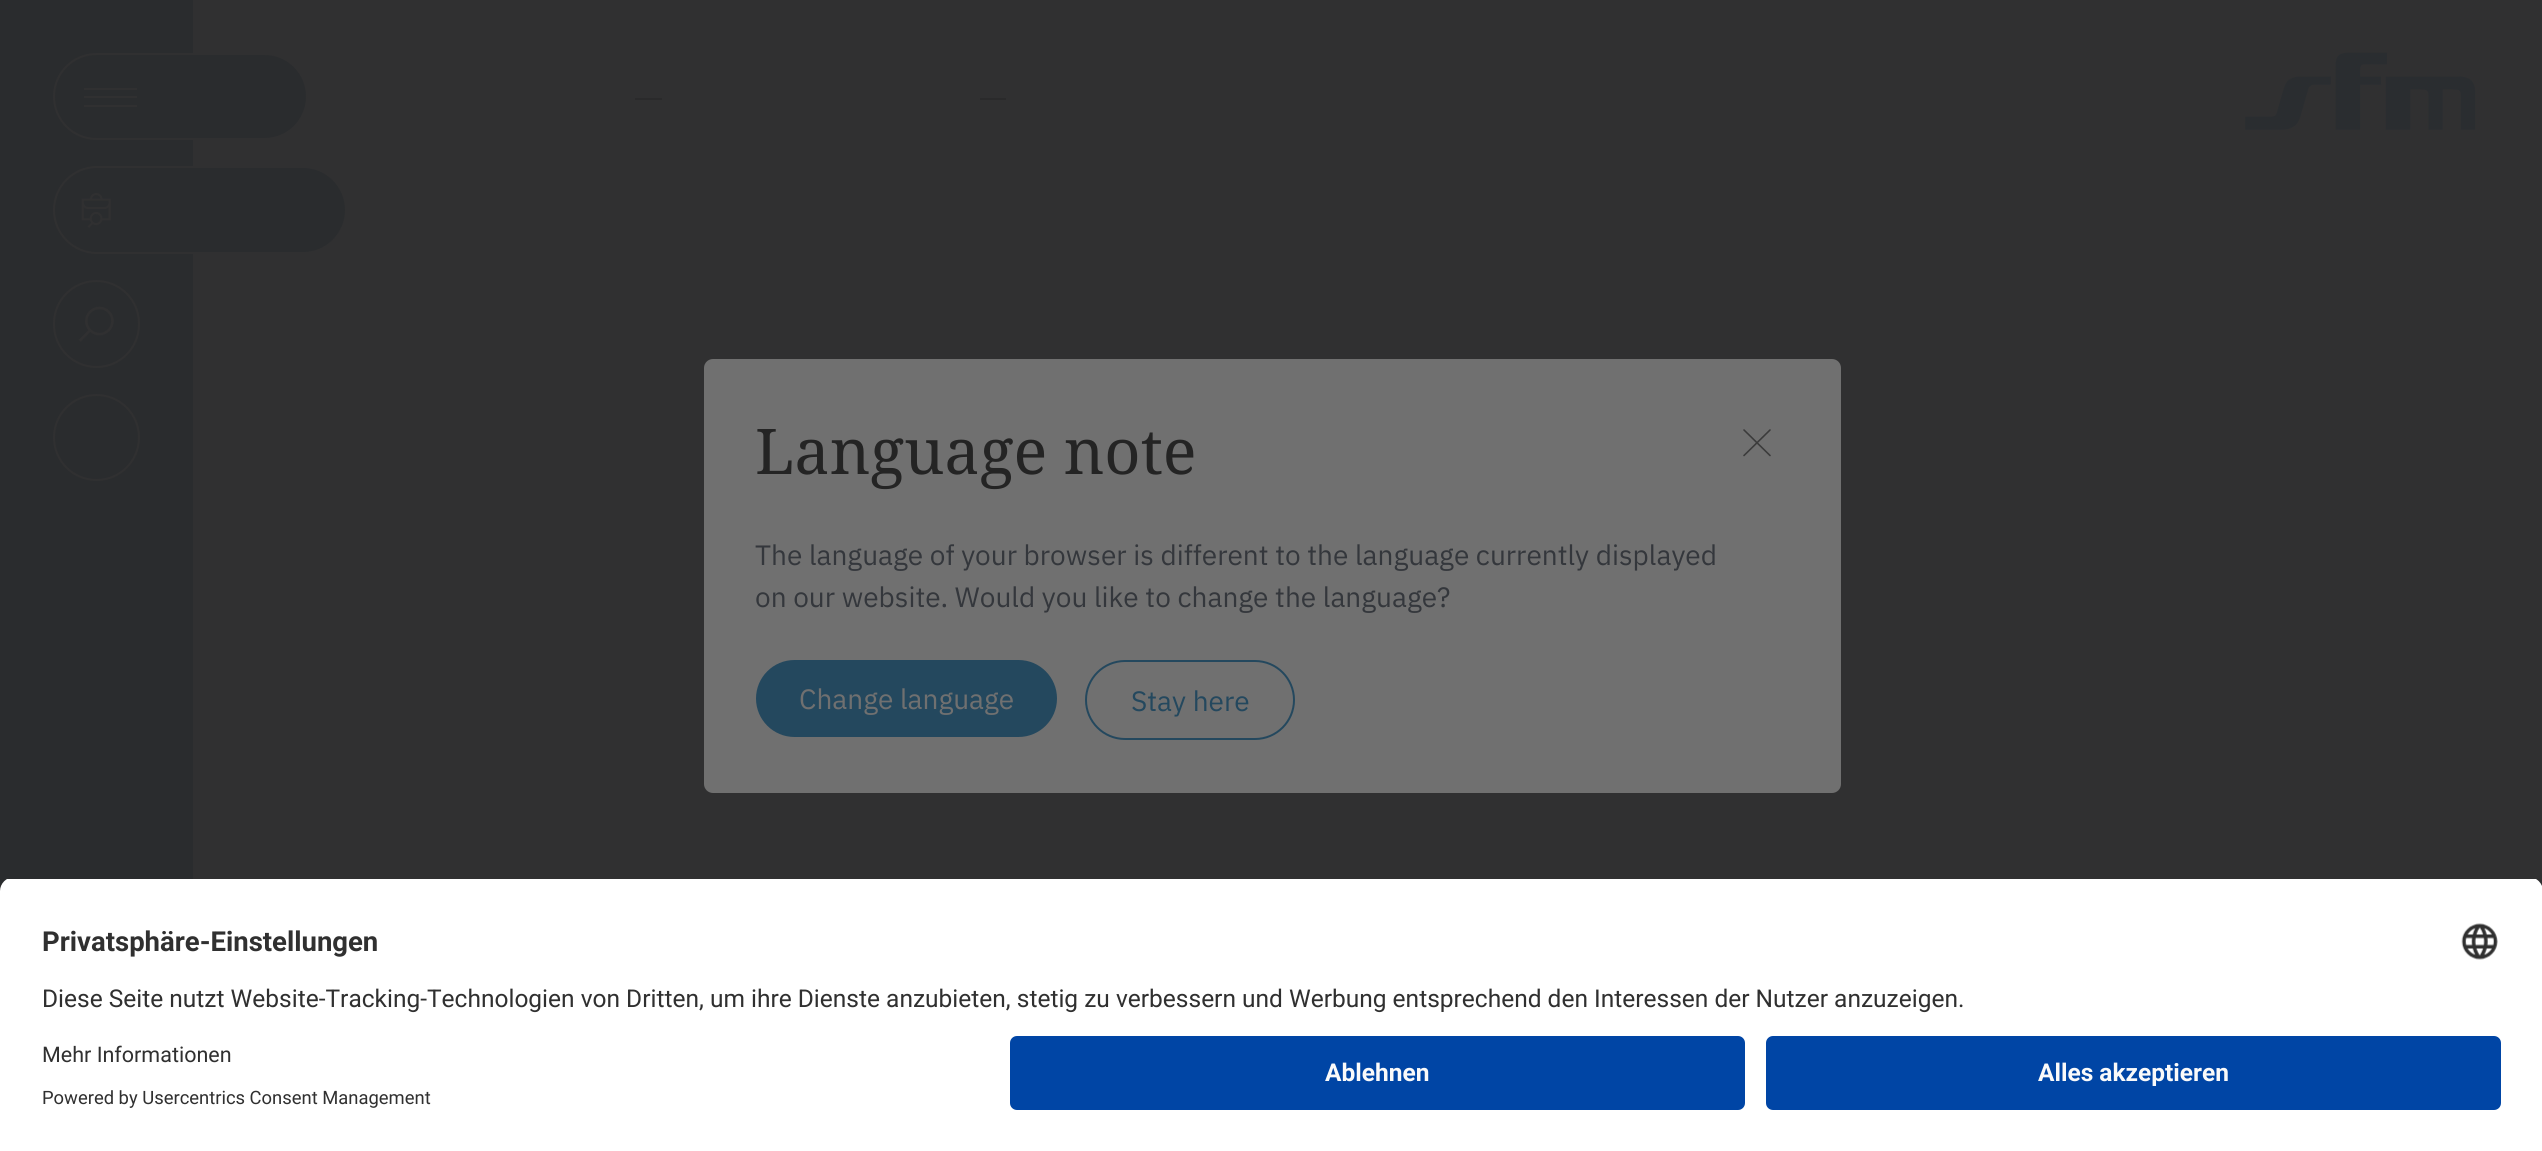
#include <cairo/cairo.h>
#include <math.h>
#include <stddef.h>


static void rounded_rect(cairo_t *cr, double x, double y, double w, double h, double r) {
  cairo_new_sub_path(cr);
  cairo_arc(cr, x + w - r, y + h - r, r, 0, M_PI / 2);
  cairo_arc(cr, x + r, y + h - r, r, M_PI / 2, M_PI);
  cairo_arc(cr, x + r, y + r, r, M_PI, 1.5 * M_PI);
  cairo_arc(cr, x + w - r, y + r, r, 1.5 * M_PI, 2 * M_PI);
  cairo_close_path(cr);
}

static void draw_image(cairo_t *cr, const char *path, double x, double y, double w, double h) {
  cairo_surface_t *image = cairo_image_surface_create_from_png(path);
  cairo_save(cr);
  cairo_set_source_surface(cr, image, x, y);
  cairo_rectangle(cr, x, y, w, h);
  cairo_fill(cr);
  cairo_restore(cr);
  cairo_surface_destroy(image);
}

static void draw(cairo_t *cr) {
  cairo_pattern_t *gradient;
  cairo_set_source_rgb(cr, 48 / 255.0, 48 / 255.0, 49 / 255.0);
  cairo_paint(cr);
  cairo_set_source_rgb(cr, 42 / 255.0, 44 / 255.0, 46 / 255.0);
  cairo_rectangle(cr, 0, 0, 193, 891);
  cairo_fill(cr);
  cairo_set_source_rgb(cr, 42 / 255.0, 42 / 255.0, 43 / 255.0);
  cairo_rectangle(cr, 635, 98, 27, 2);
  cairo_fill(cr);
  cairo_rectangle(cr, 980, 98, 26, 2);
  cairo_fill(cr);
  draw_image(cr, "images/1.png", 2245, 52, 261, 103);
  cairo_set_source_rgb(cr, 42 / 255.0, 44 / 255.0, 46 / 255.0);
  rounded_rect(cr, 54, 54, 253, 85, 42.5);
  cairo_fill_preserve(cr);
  cairo_set_source_rgb(cr, 48 / 255.0, 48 / 255.0, 49 / 255.0);
  cairo_stroke(cr);
  cairo_rectangle(cr, 84, 96, 53, 2);
  cairo_fill(cr);
  cairo_rectangle(cr, 84, 88, 53, 2);
  cairo_fill(cr);
  cairo_rectangle(cr, 84, 105, 53, 2);
  cairo_fill(cr);
  cairo_set_source_rgb(cr, 42 / 255.0, 44 / 255.0, 46 / 255.0);
  rounded_rect(cr, 54, 167, 292, 86, 43);
  cairo_fill_preserve(cr);
  cairo_set_source_rgb(cr, 48 / 255.0, 48 / 255.0, 49 / 255.0);
  cairo_stroke(cr);
  draw_image(cr, "images/2.png", 81, 192, 30, 36);
  rounded_rect(cr, 54, 281, 85, 86, 42.5);
  cairo_stroke(cr);
  draw_image(cr, "images/3.png", 78, 306, 36, 36);
  cairo_arc(cr, 96.5, 437.5, 42.5, 0, 2 * M_PI);
  cairo_stroke(cr);
  cairo_set_source_rgb(cr, 112 / 255.0, 112 / 255.0, 112 / 255.0);
  rounded_rect(cr, 704, 359, 1137, 434, 9);
  cairo_fill(cr);
  gradient = cairo_pattern_create_radial(0, 0, 0, 0, 0, 1);
  cairo_pattern_set_matrix(gradient, &(cairo_matrix_t){1.0 / 1490, 0, 0, 1.0 / 381, -1.0 * 3.5 / 1490, -1.0 * 698 / 381});
  cairo_pattern_add_color_stop_rgba(gradient, 0, 36 / 255.0, 56 / 255.0, 67 / 255.0, 1);
  cairo_pattern_add_color_stop_rgba(gradient, 0.5, 36 / 255.0, 56 / 255.0, 67 / 255.0, 1);
  cairo_pattern_add_color_stop_rgba(gradient, 0.5, 36 / 255.0, 72 / 255.0, 94 / 255.0, 1);
  cairo_pattern_add_color_stop_rgba(gradient, 1, 36 / 255.0, 72 / 255.0, 94 / 255.0, 1);
  cairo_set_source(cr, gradient);
  cairo_pattern_destroy(gradient);
  rounded_rect(cr, 756, 660, 301, 77, 38.5);
  cairo_fill(cr);
  rounded_rect(cr, 1086, 661, 208, 78, 39);
  cairo_set_source_rgb(cr, 36 / 255.0, 72 / 255.0, 94 / 255.0);
  cairo_stroke(cr);
  cairo_new_path(cr);
  cairo_move_to(cr, 1770, 455.5);
  cairo_line_to(cr, 1744, 430);
  cairo_move_to(cr, 1770, 430);
  cairo_line_to(cr, 1744, 455.5);
  cairo_set_source_rgb(cr, 59 / 255.0, 59 / 255.0, 59 / 255.0);
  cairo_set_line_width(cr, 1.6);
  cairo_set_line_cap(cr, CAIRO_LINE_CAP_ROUND);
  cairo_set_line_join(cr, CAIRO_LINE_JOIN_BEVEL);
  cairo_stroke(cr);
  cairo_save(cr);
  cairo_new_path(cr);
  cairo_move_to(cr, 14, 877);
  cairo_line_to(cr, 2529, 877);
  cairo_curve_to(cr, 2536.5, 877, 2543, 883.5, 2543, 891);
  cairo_line_to(cr, 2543, 1022);
  cairo_line_to(cr, 0, 1022);
  cairo_line_to(cr, 0, 891);
  cairo_curve_to(cr, 0, 883.5, 6.5, 877, 14, 877);
  cairo_close_path(cr);
  cairo_clip(cr);
  cairo_set_source_rgb(cr, 1, 1, 1);
  cairo_rectangle(cr, 0, 879, 2542, 143);
  cairo_fill(cr);
  cairo_restore(cr);
  draw_image(cr, "images/4.png", 2461, 923, 37, 37);
  cairo_set_source_rgb(cr, 1, 1, 1);
  cairo_rectangle(cr, 0, 1022, 2542, 129);
  cairo_fill(cr);
  cairo_set_source_rgb(cr, 0, 69 / 255.0, 165 / 255.0);
  rounded_rect(cr, 1010, 1036, 735, 74, 7);
  cairo_fill(cr);
  rounded_rect(cr, 1766, 1036, 735, 74, 7);
  cairo_fill(cr);
  cairo_select_font_face(cr, "Noto Serif", CAIRO_FONT_SLANT_NORMAL, CAIRO_FONT_WEIGHT_NORMAL);
  cairo_set_font_size(cr, 63);
  cairo_set_source_rgb(cr, 36 / 255.0, 36 / 255.0, 36 / 255.0);
  cairo_move_to(cr, 755, 474);
  cairo_show_text(cr, "Language note");
  cairo_select_font_face(cr, "IBM Plex Sans", CAIRO_FONT_SLANT_NORMAL, CAIRO_FONT_WEIGHT_NORMAL);
  cairo_set_font_size(cr, 28);
  cairo_set_source_rgb(cr, 52 / 255.0, 55 / 255.0, 60 / 255.0);
  cairo_move_to(cr, 755, 565);
  cairo_show_text(cr, "The language of your browser is different to the language currently displayed");
  cairo_move_to(cr, 755, 607);
  cairo_show_text(cr, "on our website. Would you like to change the language?");
  cairo_set_source_rgb(cr, 112 / 255.0, 112 / 255.0, 112 / 255.0);
  cairo_move_to(cr, 799, 709);
  cairo_show_text(cr, "Change language");
  cairo_set_source_rgb(cr, 36 / 255.0, 72 / 255.0, 94 / 255.0);
  cairo_move_to(cr, 1131, 711);
  cairo_show_text(cr, "Stay here");
  cairo_select_font_face(cr, "Roboto", CAIRO_FONT_SLANT_NORMAL, CAIRO_FONT_WEIGHT_BOLD);
  cairo_set_font_size(cr, 27.5);
  cairo_set_source_rgb(cr, 48 / 255.0, 48 / 255.0, 48 / 255.0);
  cairo_move_to(cr, 42, 951);
  cairo_show_text(cr, "Privatsphäre-Einstellungen");
  cairo_select_font_face(cr, "Roboto", CAIRO_FONT_SLANT_NORMAL, CAIRO_FONT_WEIGHT_NORMAL);
  cairo_set_font_size(cr, 24.5);
  cairo_move_to(cr, 42, 1007);
  cairo_show_text(cr, "Diese Seite nutzt Website-Tracking-Technologien von Dritten, um ihre Dienste anzubieten, stetig zu verbessern und Werbung entsprechend den Interessen der Nutzer anzuzeigen.");
  cairo_set_font_size(cr, 21.5);
  cairo_move_to(cr, 42, 1062);
  cairo_show_text(cr, "Mehr Informationen");
  cairo_set_font_size(cr, 18.4);
  cairo_move_to(cr, 42, 1104);
  cairo_show_text(cr, "Powered by Usercentrics Consent Management");
  cairo_select_font_face(cr, "Roboto", CAIRO_FONT_SLANT_NORMAL, CAIRO_FONT_WEIGHT_BOLD);
  cairo_set_font_size(cr, 24.5);
  cairo_set_source_rgb(cr, 250 / 255.0, 250 / 255.0, 250 / 255.0);
  cairo_move_to(cr, 1325, 1081);
  cairo_show_text(cr, "Ablehnen");
  cairo_move_to(cr, 2038, 1081);
  cairo_show_text(cr, "Alles akzeptieren");
}

int main(void) {
  cairo_surface_t *surface = cairo_image_surface_create(CAIRO_FORMAT_RGB24, 2542, 1151);
  cairo_t *cr = cairo_create(surface);
  cairo_font_options_t *options = cairo_font_options_create();
  cairo_font_options_set_hint_metrics(options, CAIRO_HINT_METRICS_OFF);
  cairo_font_options_set_hint_style(options, CAIRO_HINT_STYLE_NONE);
  cairo_set_font_options(cr, options);
  cairo_set_miter_limit(cr, 4);
  draw(cr);
  cairo_surface_write_to_png(surface, "out.png");
  cairo_font_options_destroy(options);
  cairo_destroy(cr);
  cairo_surface_destroy(surface);
  return 0;
}
